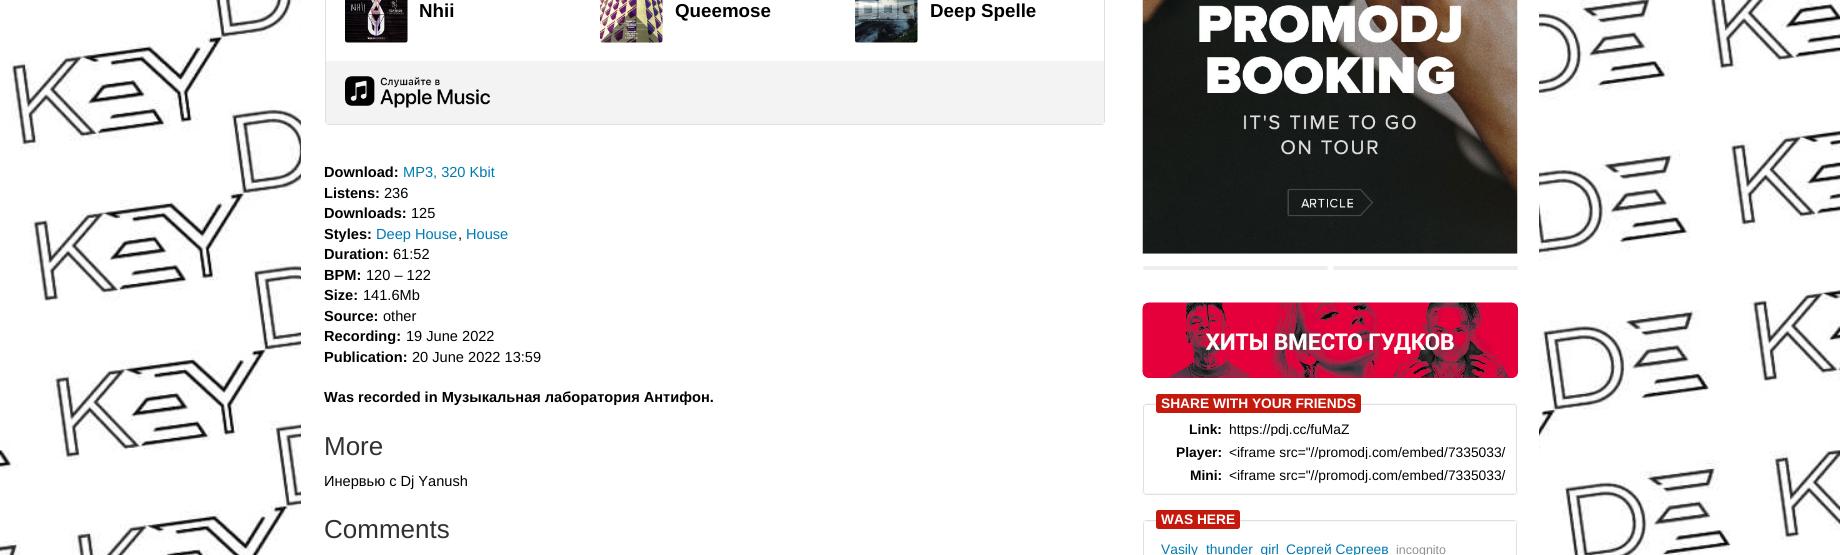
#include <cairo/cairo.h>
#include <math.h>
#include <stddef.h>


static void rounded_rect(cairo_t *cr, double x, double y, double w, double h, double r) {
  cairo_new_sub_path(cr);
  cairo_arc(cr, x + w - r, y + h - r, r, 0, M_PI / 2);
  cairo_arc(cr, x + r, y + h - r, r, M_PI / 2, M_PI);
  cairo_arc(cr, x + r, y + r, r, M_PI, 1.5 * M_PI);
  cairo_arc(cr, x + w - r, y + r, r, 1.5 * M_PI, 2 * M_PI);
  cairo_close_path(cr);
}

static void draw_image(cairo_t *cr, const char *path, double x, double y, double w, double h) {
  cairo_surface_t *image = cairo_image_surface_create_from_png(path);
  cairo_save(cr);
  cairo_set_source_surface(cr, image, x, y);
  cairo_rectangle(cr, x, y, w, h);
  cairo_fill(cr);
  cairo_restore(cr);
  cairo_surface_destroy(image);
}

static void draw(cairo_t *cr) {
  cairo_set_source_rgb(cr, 1, 1, 1);
  cairo_paint(cr);
  draw_image(cr, "images/1.png", 0, 0, 1840, 555);
  cairo_set_source_rgb(cr, 1, 1, 1);
  cairo_rectangle(cr, 301, 0, 1238, 555);
  cairo_fill(cr);
  rounded_rect(cr, 325.5, -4.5, 779, 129, 3.5);
  cairo_set_source_rgb(cr, 224 / 255.0, 224 / 255.0, 224 / 255.0);
  cairo_set_line_width(cr, 1);
  cairo_stroke(cr);
  cairo_set_source_rgb(cr, 247 / 255.0, 247 / 255.0, 247 / 255.0);
  rounded_rect(cr, 345, -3, 63, 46, 2.5);
  cairo_fill(cr);
  draw_image(cr, "images/2.png", 345, 0, 63, 43);
  rounded_rect(cr, 600, -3, 63, 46, 2.5);
  cairo_fill(cr);
  draw_image(cr, "images/3.png", 600, 0, 63, 43);
  rounded_rect(cr, 855, -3, 63, 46, 2.5);
  cairo_fill(cr);
  draw_image(cr, "images/4.png", 855, 0, 63, 43);
  cairo_set_source_rgb(cr, 243 / 255.0, 243 / 255.0, 243 / 255.0);
  cairo_rectangle(cr, 326, 61, 778, 63);
  cairo_fill(cr);
  draw_image(cr, "images/5.png", 345, 76, 145, 32);
  draw_image(cr, "images/6.png", 1142, 0, 376, 254);
  cairo_set_source_rgb(cr, 238 / 255.0, 238 / 255.0, 238 / 255.0);
  rounded_rect(cr, 1143, 266, 185, 4, 2);
  cairo_fill(cr);
  rounded_rect(cr, 1333, 266, 185, 4, 2);
  cairo_fill(cr);
  cairo_set_source_rgb(cr, 226 / 255.0, 0, 63 / 255.0);
  rounded_rect(cr, 1143, 303, 375, 75, 6);
  cairo_fill(cr);
  draw_image(cr, "images/7.png", 1142, 302, 376, 76);
  draw_image(cr, "images/8.png", 1142, 403, 376, 2);
  draw_image(cr, "images/10.png", 1514, 403, 4, 4);
  cairo_set_source_rgb(cr, 224 / 255.0, 224 / 255.0, 224 / 255.0);
  cairo_rectangle(cr, 1516, 406, 1, 85);
  cairo_fill(cr);
  draw_image(cr, "images/9.png", 1142, 403, 4, 4);
  cairo_rectangle(cr, 1143, 406, 1, 85);
  cairo_fill(cr);
  cairo_set_source_rgb(cr, 198 / 255.0, 25 / 255.0, 14 / 255.0);
  rounded_rect(cr, 1156, 394, 205, 19, 2.5);
  cairo_fill(cr);
  draw_image(cr, "images/8.png", 1142, 493, 376, 2);
  draw_image(cr, "images/11.png", 1142, 491, 3, 4);
  draw_image(cr, "images/12.png", 1515, 491, 3, 4);
  cairo_set_source_rgb(cr, 224 / 255.0, 224 / 255.0, 224 / 255.0);
  cairo_rectangle(cr, 1516, 523, 1, 32);
  cairo_fill(cr);
  cairo_rectangle(cr, 1143, 523, 1, 32);
  cairo_fill(cr);
  draw_image(cr, "images/13.png", 1145, 520, 370, 2);
  cairo_set_source_rgb(cr, 198 / 255.0, 25 / 255.0, 14 / 255.0);
  rounded_rect(cr, 1156, 510, 84, 19, 2.5);
  cairo_fill(cr);
  cairo_set_source_rgb(cr, 249 / 255.0, 249 / 255.0, 249 / 255.0);
  cairo_rectangle(cr, 1142, 520, 3, 3);
  cairo_fill(cr);
  cairo_set_source_rgb(cr, 248 / 255.0, 248 / 255.0, 248 / 255.0);
  cairo_rectangle(cr, 1515, 520, 3, 3);
  cairo_fill(cr);
  cairo_select_font_face(cr, "Liberation Sans", CAIRO_FONT_SLANT_NORMAL, CAIRO_FONT_WEIGHT_BOLD);
  cairo_set_font_size(cr, 18.75);
  cairo_set_source_rgb(cr, 0, 0, 0);
  cairo_move_to(cr, 419, 17);
  cairo_show_text(cr, "Nhii");
  cairo_move_to(cr, 675, 17);
  cairo_show_text(cr, "Queemose");
  cairo_move_to(cr, 930, 17);
  cairo_show_text(cr, "Deep Spelle");
  cairo_set_font_size(cr, 14.6);
  cairo_move_to(cr, 324, 177);
  cairo_show_text(cr, "Download:");
  cairo_select_font_face(cr, "Liberation Sans", CAIRO_FONT_SLANT_NORMAL, CAIRO_FONT_WEIGHT_NORMAL);
  cairo_set_source_rgb(cr, 0, 122 / 255.0, 177 / 255.0);
  cairo_move_to(cr, 403, 177);
  cairo_show_text(cr, "MP3, 320 Kbit");
  cairo_select_font_face(cr, "Liberation Sans", CAIRO_FONT_SLANT_NORMAL, CAIRO_FONT_WEIGHT_BOLD);
  cairo_set_source_rgb(cr, 0, 0, 0);
  cairo_move_to(cr, 324, 198);
  cairo_show_text(cr, "Listens:");
  cairo_select_font_face(cr, "Liberation Sans", CAIRO_FONT_SLANT_NORMAL, CAIRO_FONT_WEIGHT_NORMAL);
  cairo_move_to(cr, 384, 198);
  cairo_show_text(cr, "236");
  cairo_select_font_face(cr, "Liberation Sans", CAIRO_FONT_SLANT_NORMAL, CAIRO_FONT_WEIGHT_BOLD);
  cairo_move_to(cr, 324, 218);
  cairo_show_text(cr, "Downloads:");
  cairo_select_font_face(cr, "Liberation Sans", CAIRO_FONT_SLANT_NORMAL, CAIRO_FONT_WEIGHT_NORMAL);
  cairo_move_to(cr, 411, 218);
  cairo_show_text(cr, "125");
  cairo_select_font_face(cr, "Liberation Sans", CAIRO_FONT_SLANT_NORMAL, CAIRO_FONT_WEIGHT_BOLD);
  cairo_move_to(cr, 324, 239);
  cairo_show_text(cr, "Styles:");
  cairo_select_font_face(cr, "Liberation Sans", CAIRO_FONT_SLANT_NORMAL, CAIRO_FONT_WEIGHT_NORMAL);
  cairo_set_source_rgb(cr, 0, 122 / 255.0, 177 / 255.0);
  cairo_move_to(cr, 376, 239);
  cairo_show_text(cr, "Deep House");
  cairo_set_source_rgb(cr, 0, 0, 0);
  cairo_move_to(cr, 458, 239);
  cairo_show_text(cr, ",");
  cairo_set_source_rgb(cr, 0, 122 / 255.0, 177 / 255.0);
  cairo_move_to(cr, 466, 239);
  cairo_show_text(cr, "House");
  cairo_select_font_face(cr, "Liberation Sans", CAIRO_FONT_SLANT_NORMAL, CAIRO_FONT_WEIGHT_BOLD);
  cairo_set_source_rgb(cr, 0, 0, 0);
  cairo_move_to(cr, 324, 259);
  cairo_show_text(cr, "Duration:");
  cairo_select_font_face(cr, "Liberation Sans", CAIRO_FONT_SLANT_NORMAL, CAIRO_FONT_WEIGHT_NORMAL);
  cairo_move_to(cr, 393, 259);
  cairo_show_text(cr, "61:52");
  cairo_select_font_face(cr, "Liberation Sans", CAIRO_FONT_SLANT_NORMAL, CAIRO_FONT_WEIGHT_BOLD);
  cairo_move_to(cr, 324, 280);
  cairo_show_text(cr, "BPM:");
  cairo_select_font_face(cr, "Liberation Sans", CAIRO_FONT_SLANT_NORMAL, CAIRO_FONT_WEIGHT_NORMAL);
  cairo_move_to(cr, 366, 280);
  cairo_show_text(cr, "120 – 122");
  cairo_select_font_face(cr, "Liberation Sans", CAIRO_FONT_SLANT_NORMAL, CAIRO_FONT_WEIGHT_BOLD);
  cairo_move_to(cr, 324, 300);
  cairo_show_text(cr, "Size:");
  cairo_select_font_face(cr, "Liberation Sans", CAIRO_FONT_SLANT_NORMAL, CAIRO_FONT_WEIGHT_NORMAL);
  cairo_move_to(cr, 363, 300);
  cairo_show_text(cr, "141.6Mb");
  cairo_select_font_face(cr, "Liberation Sans", CAIRO_FONT_SLANT_NORMAL, CAIRO_FONT_WEIGHT_BOLD);
  cairo_move_to(cr, 324, 321);
  cairo_show_text(cr, "Source:");
  cairo_select_font_face(cr, "Liberation Sans", CAIRO_FONT_SLANT_NORMAL, CAIRO_FONT_WEIGHT_NORMAL);
  cairo_move_to(cr, 383, 321);
  cairo_show_text(cr, "other");
  cairo_select_font_face(cr, "Liberation Sans", CAIRO_FONT_SLANT_NORMAL, CAIRO_FONT_WEIGHT_BOLD);
  cairo_move_to(cr, 324, 341);
  cairo_show_text(cr, "Recording:");
  cairo_select_font_face(cr, "Liberation Sans", CAIRO_FONT_SLANT_NORMAL, CAIRO_FONT_WEIGHT_NORMAL);
  cairo_move_to(cr, 406, 341);
  cairo_show_text(cr, "19 June 2022");
  cairo_select_font_face(cr, "Liberation Sans", CAIRO_FONT_SLANT_NORMAL, CAIRO_FONT_WEIGHT_BOLD);
  cairo_move_to(cr, 324, 362);
  cairo_show_text(cr, "Publication:");
  cairo_select_font_face(cr, "Liberation Sans", CAIRO_FONT_SLANT_NORMAL, CAIRO_FONT_WEIGHT_NORMAL);
  cairo_move_to(cr, 412, 362);
  cairo_show_text(cr, "20 June 2022 13:59");
  cairo_select_font_face(cr, "Liberation Sans", CAIRO_FONT_SLANT_NORMAL, CAIRO_FONT_WEIGHT_BOLD);
  cairo_move_to(cr, 324, 402);
  cairo_show_text(cr, "Was recorded in Музыкальная лаборатория Антифон.");
  cairo_select_font_face(cr, "Liberation Sans", CAIRO_FONT_SLANT_NORMAL, CAIRO_FONT_WEIGHT_NORMAL);
  cairo_set_font_size(cr, 26);
  cairo_set_source_rgb(cr, 49 / 255.0, 49 / 255.0, 49 / 255.0);
  cairo_move_to(cr, 324, 455);
  cairo_show_text(cr, "More");
  cairo_set_font_size(cr, 14.6);
  cairo_set_source_rgb(cr, 0, 0, 0);
  cairo_move_to(cr, 324, 486);
  cairo_show_text(cr, "Инервью с Dj Yanush");
  cairo_set_font_size(cr, 26);
  cairo_set_source_rgb(cr, 49 / 255.0, 49 / 255.0, 49 / 255.0);
  cairo_move_to(cr, 324, 538);
  cairo_show_text(cr, "Comments");
  cairo_select_font_face(cr, "Liberation Sans", CAIRO_FONT_SLANT_NORMAL, CAIRO_FONT_WEIGHT_BOLD);
  cairo_set_font_size(cr, 13.75);
  cairo_set_source_rgb(cr, 1, 1, 1);
  cairo_move_to(cr, 1161, 408);
  cairo_show_text(cr, "SHARE WITH YOUR FRIENDS");
  cairo_set_font_size(cr, 13.8);
  cairo_set_source_rgb(cr, 0, 0, 0);
  cairo_move_to(cr, 1189, 434);
  cairo_show_text(cr, "Link:");
  cairo_save(cr);
  cairo_rectangle(cr, 1229, 421, 277, 15);
  cairo_clip(cr);
  cairo_select_font_face(cr, "Liberation Sans", CAIRO_FONT_SLANT_NORMAL, CAIRO_FONT_WEIGHT_NORMAL);
  cairo_move_to(cr, 1229, 434);
  cairo_show_text(cr, "https://pdj.cc/fuMaZ");
  cairo_restore(cr);
  cairo_move_to(cr, 1176, 457);
  cairo_show_text(cr, "Player:");
  cairo_save(cr);
  cairo_rectangle(cr, 1229, 444, 277, 15);
  cairo_clip(cr);
  cairo_select_font_face(cr, "Liberation Sans", CAIRO_FONT_SLANT_NORMAL, CAIRO_FONT_WEIGHT_NORMAL);
  cairo_move_to(cr, 1229, 457);
  cairo_show_text(cr, "<iframe src=\"//promodj.com/embed/7335033/");
  cairo_restore(cr);
  cairo_move_to(cr, 1190, 480);
  cairo_show_text(cr, "Mini:");
  cairo_select_font_face(cr, "Liberation Sans", CAIRO_FONT_SLANT_NORMAL, CAIRO_FONT_WEIGHT_NORMAL);
  cairo_move_to(cr, 1229, 480);
  cairo_show_text(cr, "<iframe src=\"//promodj.com/embed/7335033/");
  cairo_select_font_face(cr, "Liberation Sans", CAIRO_FONT_SLANT_NORMAL, CAIRO_FONT_WEIGHT_BOLD);
  cairo_set_font_size(cr, 13.75);
  cairo_set_source_rgb(cr, 1, 1, 1);
  cairo_move_to(cr, 1161, 524);
  cairo_show_text(cr, "WAS HERE");
  cairo_select_font_face(cr, "Liberation Sans", CAIRO_FONT_SLANT_NORMAL, CAIRO_FONT_WEIGHT_NORMAL);
  cairo_set_font_size(cr, 13.8);
  cairo_set_source_rgb(cr, 0, 122 / 255.0, 177 / 255.0);
  cairo_move_to(cr, 1161, 554);
  cairo_show_text(cr, "Vasily");
  cairo_move_to(cr, 1206, 554);
  cairo_show_text(cr, "thunder_girl");
  cairo_move_to(cr, 1286, 554);
  cairo_show_text(cr, "Сергей Сергеев");
  cairo_set_font_size(cr, 12.5);
  cairo_set_source_rgb(cr, 144 / 255.0, 144 / 255.0, 144 / 255.0);
  cairo_move_to(cr, 1396, 554);
  cairo_show_text(cr, "incognito");
}

int main(void) {
  cairo_surface_t *surface = cairo_image_surface_create(CAIRO_FORMAT_RGB24, 1840, 555);
  cairo_t *cr = cairo_create(surface);
  cairo_font_options_t *options = cairo_font_options_create();
  cairo_font_options_set_hint_metrics(options, CAIRO_HINT_METRICS_OFF);
  cairo_font_options_set_hint_style(options, CAIRO_HINT_STYLE_NONE);
  cairo_set_font_options(cr, options);
  cairo_set_miter_limit(cr, 4);
  draw(cr);
  cairo_surface_write_to_png(surface, "out.png");
  cairo_font_options_destroy(options);
  cairo_destroy(cr);
  cairo_surface_destroy(surface);
  return 0;
}
